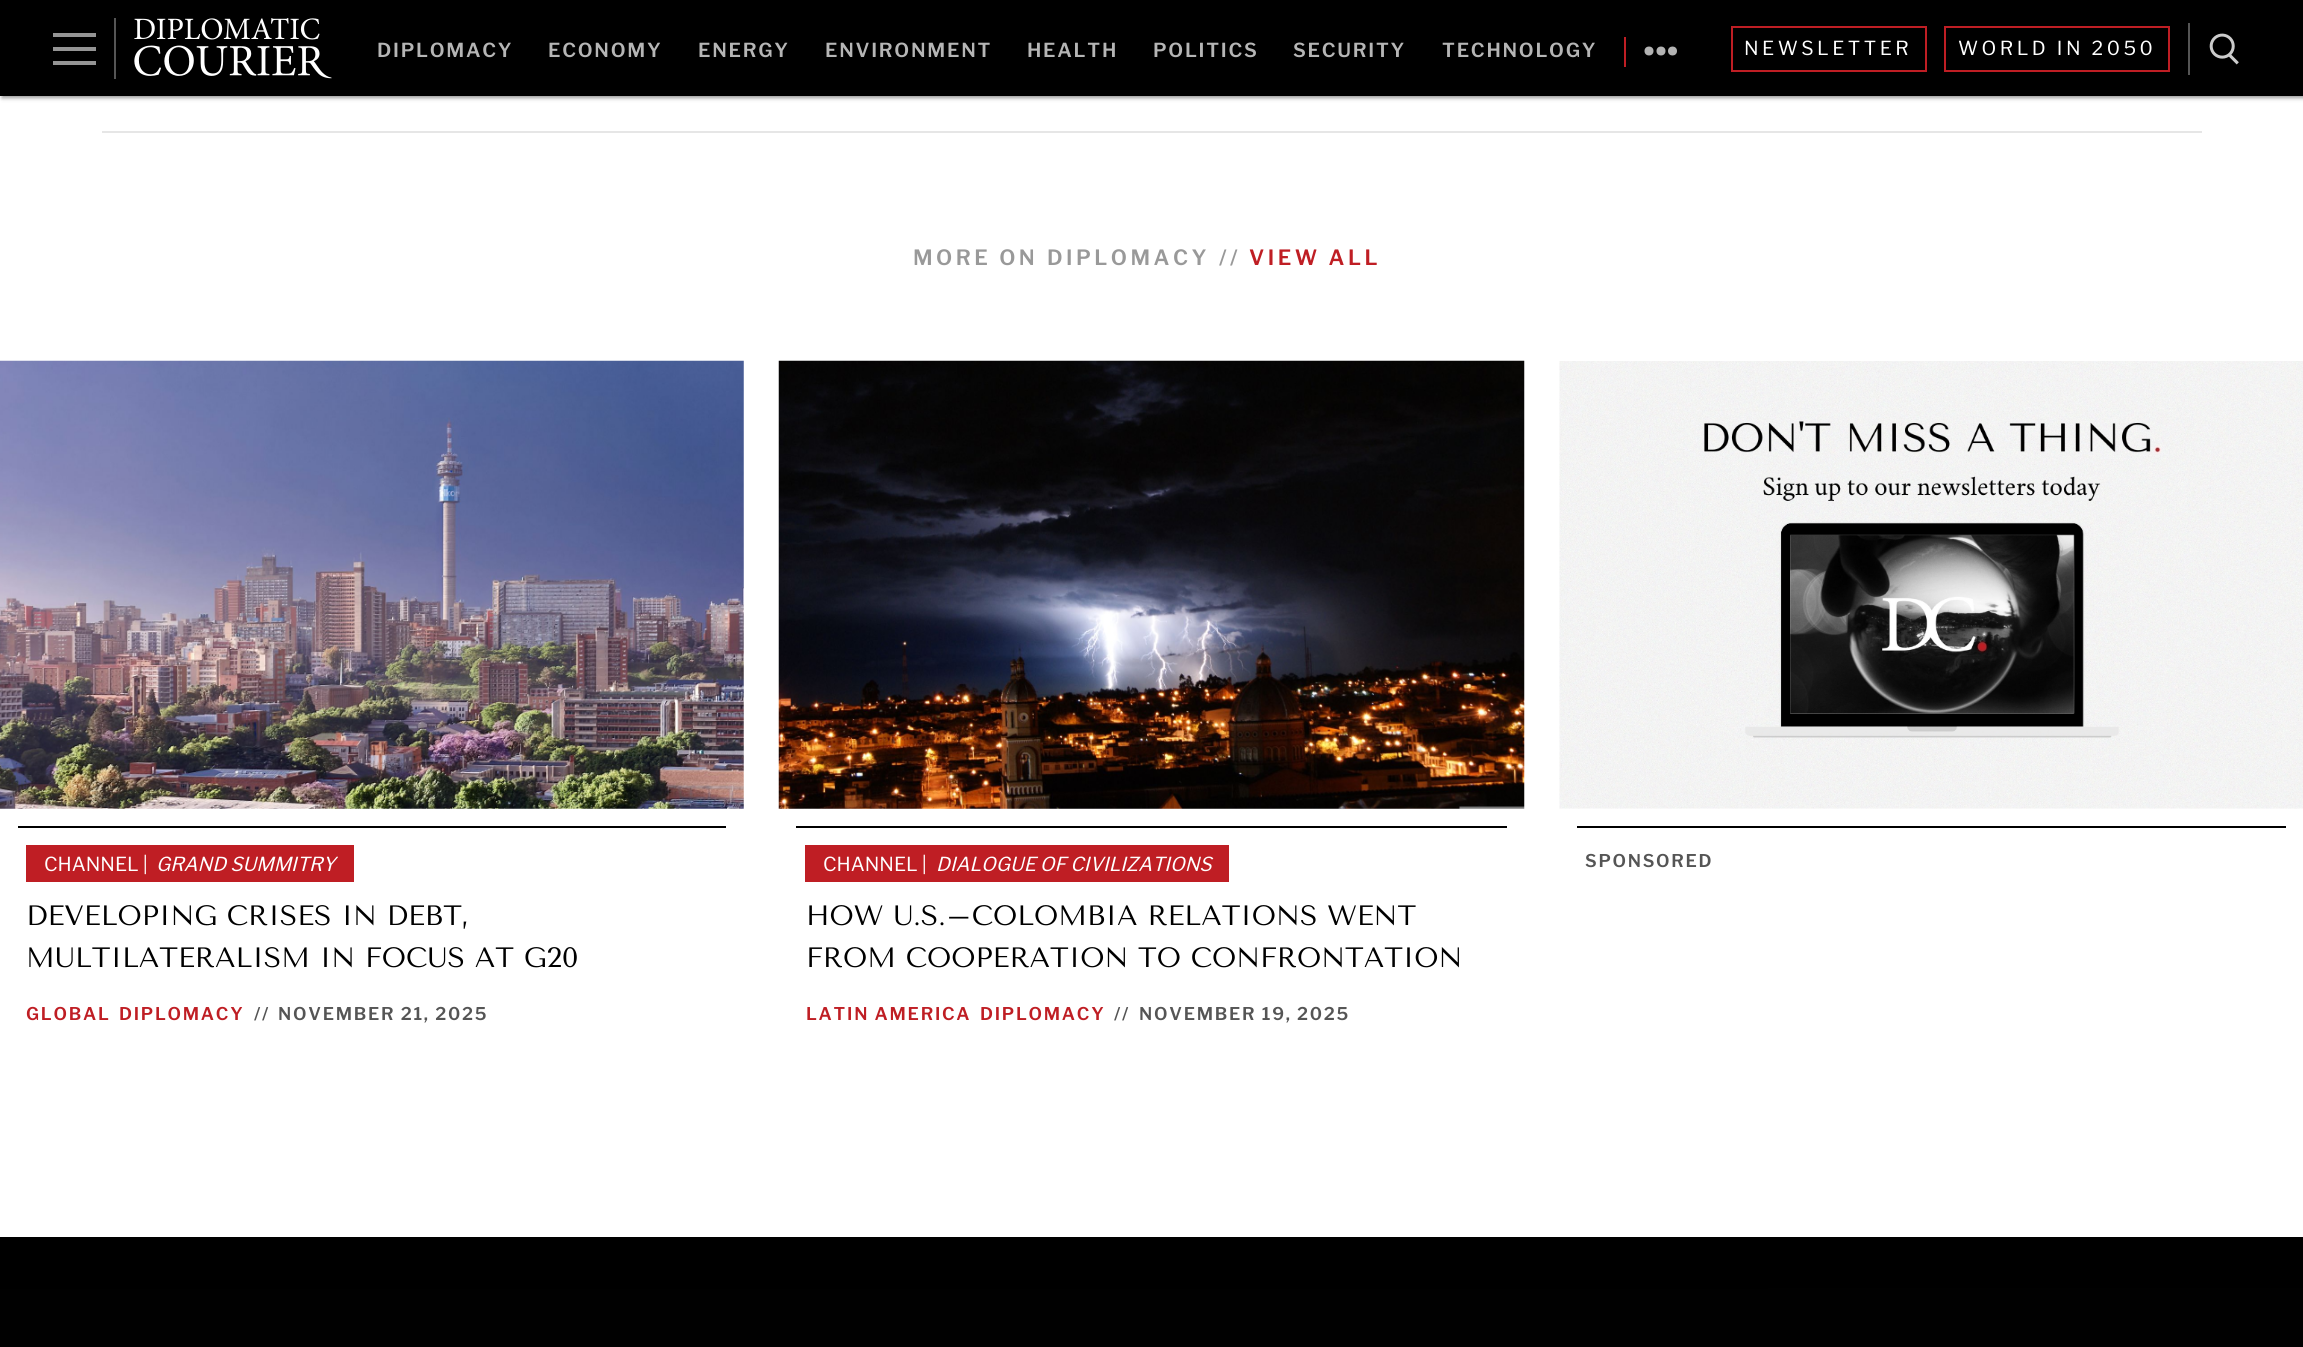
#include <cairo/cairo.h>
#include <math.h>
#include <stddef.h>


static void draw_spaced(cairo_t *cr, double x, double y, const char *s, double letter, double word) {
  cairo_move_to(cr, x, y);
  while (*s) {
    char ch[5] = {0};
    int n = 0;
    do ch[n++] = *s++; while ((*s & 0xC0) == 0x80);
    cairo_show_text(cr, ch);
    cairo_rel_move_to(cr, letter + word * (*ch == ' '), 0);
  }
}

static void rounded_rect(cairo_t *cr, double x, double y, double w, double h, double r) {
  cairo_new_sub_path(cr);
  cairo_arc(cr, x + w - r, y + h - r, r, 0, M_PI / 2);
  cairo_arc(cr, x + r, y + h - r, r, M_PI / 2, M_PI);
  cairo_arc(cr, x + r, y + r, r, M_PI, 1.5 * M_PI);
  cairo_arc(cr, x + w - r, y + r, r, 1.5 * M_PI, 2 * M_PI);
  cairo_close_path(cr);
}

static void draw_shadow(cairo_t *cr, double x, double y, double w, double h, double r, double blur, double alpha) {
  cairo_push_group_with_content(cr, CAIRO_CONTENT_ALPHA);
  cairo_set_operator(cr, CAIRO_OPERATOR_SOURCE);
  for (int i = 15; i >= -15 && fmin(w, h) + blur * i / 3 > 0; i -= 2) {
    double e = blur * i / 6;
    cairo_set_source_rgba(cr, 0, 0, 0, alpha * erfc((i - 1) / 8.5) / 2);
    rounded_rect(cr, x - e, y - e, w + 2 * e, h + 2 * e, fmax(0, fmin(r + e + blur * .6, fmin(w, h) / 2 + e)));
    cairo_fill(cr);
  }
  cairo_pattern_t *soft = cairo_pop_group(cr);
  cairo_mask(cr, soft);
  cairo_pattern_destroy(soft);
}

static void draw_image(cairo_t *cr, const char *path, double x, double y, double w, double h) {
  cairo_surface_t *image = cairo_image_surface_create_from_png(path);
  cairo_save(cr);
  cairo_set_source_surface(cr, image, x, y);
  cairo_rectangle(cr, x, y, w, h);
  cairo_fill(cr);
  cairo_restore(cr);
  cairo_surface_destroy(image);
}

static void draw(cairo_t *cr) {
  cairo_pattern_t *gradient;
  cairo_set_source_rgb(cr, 1, 1, 1);
  cairo_paint(cr);
  cairo_set_source_rgb(cr, 0, 0, 0);
  draw_shadow(cr, 2, 2, 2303, 96, 0, 2, 0.4);
  cairo_set_source_rgb(cr, 0, 0, 0);
  cairo_rectangle(cr, 0, 0, 2303, 96);
  cairo_fill(cr);
  cairo_set_source_rgb(cr, 148 / 255.0, 148 / 255.0, 148 / 255.0);
  cairo_rectangle(cr, 53, 33, 43, 4);
  cairo_fill(cr);
  cairo_rectangle(cr, 53, 47, 43, 4);
  cairo_fill(cr);
  cairo_rectangle(cr, 53, 61, 43, 4);
  cairo_fill(cr);
  cairo_set_source_rgb(cr, 85 / 255.0, 85 / 255.0, 85 / 255.0);
  cairo_rectangle(cr, 114, 18, 2, 61);
  cairo_fill(cr);
  draw_image(cr, "images/1.png", 134, 18, 198, 61);
  cairo_set_source_rgb(cr, 191 / 255.0, 30 / 255.0, 36 / 255.0);
  cairo_rectangle(cr, 1624, 37, 2, 30);
  cairo_fill(cr);
  cairo_set_source_rgb(cr, 179 / 255.0, 179 / 255.0, 179 / 255.0);
  cairo_arc(cr, 1672.5, 51, 4.5, 0, 2 * M_PI);
  cairo_fill(cr);
  cairo_arc(cr, 1649, 51, 4.5, 0, 2 * M_PI);
  cairo_fill(cr);
  cairo_arc(cr, 1661, 51, 4.5, 0, 2 * M_PI);
  cairo_fill(cr);
  cairo_rectangle(cr, 1732, 27, 194, 44);
  cairo_set_source_rgb(cr, 191 / 255.0, 30 / 255.0, 36 / 255.0);
  cairo_stroke(cr);
  cairo_rectangle(cr, 1945, 27, 224, 44);
  cairo_stroke(cr);
  cairo_set_source_rgb(cr, 85 / 255.0, 85 / 255.0, 85 / 255.0);
  cairo_rectangle(cr, 2188, 23, 2, 52);
  cairo_fill(cr);
  draw_image(cr, "images/2.png", 2209, 33, 30, 32);
  cairo_set_source_rgb(cr, 230 / 255.0, 230 / 255.0, 230 / 255.0);
  cairo_rectangle(cr, 102, 131, 2100, 2);
  cairo_fill(cr);
  draw_image(cr, "images/3.png", 0, 360, 744, 449);
  cairo_set_source_rgb(cr, 0, 0, 0);
  cairo_rectangle(cr, 18, 826, 708, 2);
  cairo_fill(cr);
  cairo_set_source_rgb(cr, 191 / 255.0, 30 / 255.0, 36 / 255.0);
  cairo_rectangle(cr, 26, 845, 328, 37);
  cairo_fill(cr);
  draw_image(cr, "images/4.png", 778, 360, 747, 449);
  cairo_set_source_rgb(cr, 0, 0, 0);
  cairo_rectangle(cr, 796, 826, 711, 2);
  cairo_fill(cr);
  cairo_set_source_rgb(cr, 191 / 255.0, 30 / 255.0, 36 / 255.0);
  cairo_rectangle(cr, 805, 845, 424, 37);
  cairo_fill(cr);
  draw_image(cr, "images/5.png", 1559, 361, 744, 448);
  cairo_set_source_rgb(cr, 0, 0, 0);
  cairo_rectangle(cr, 1577, 826, 709, 2);
  cairo_fill(cr);
  gradient = cairo_pattern_create_linear(1151, 1237, 1152, 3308);
  cairo_pattern_add_color_stop_rgba(gradient, 0, 0, 0, 0, 1);
  cairo_pattern_add_color_stop_rgba(gradient, 1, 20 / 255.0, 20 / 255.0, 20 / 255.0, 1);
  cairo_set_source(cr, gradient);
  cairo_pattern_destroy(gradient);
  cairo_rectangle(cr, 0, 1237, 2303, 110);
  cairo_fill(cr);
  cairo_select_font_face(cr, "Libre Franklin SemiBold", CAIRO_FONT_SLANT_NORMAL, CAIRO_FONT_WEIGHT_NORMAL);
  cairo_set_font_size(cr, 19.25);
  cairo_set_source_rgb(cr, 181 / 255.0, 181 / 255.0, 181 / 255.0);
  draw_spaced(cr, 377, 57, "DIPLOMACY", 1.75, 0);
  draw_spaced(cr, 548, 57, "ECONOMY", 1.75, 0);
  draw_spaced(cr, 698, 57, "ENERGY", 1.75, 0);
  draw_spaced(cr, 825, 57, "ENVIRONMENT", 1.75, 0);
  draw_spaced(cr, 1027, 57, "HEALTH", 1.75, 0);
  draw_spaced(cr, 1153, 57, "POLITICS", 1.75, 0);
  draw_spaced(cr, 1293, 57, "SECURITY", 1.75, 0);
  draw_spaced(cr, 1442, 57, "TECHNOLOGY", 1.75, 0);
  cairo_select_font_face(cr, "Libre Franklin", CAIRO_FONT_SLANT_NORMAL, CAIRO_FONT_WEIGHT_NORMAL);
  cairo_set_source_rgb(cr, 1, 1, 1);
  draw_spaced(cr, 1744, 55, "NEWSLETTER", 3.5, 0);
  draw_spaced(cr, 1958, 55, "WORLD IN 2050", 3.5, 0);
  cairo_select_font_face(cr, "Libre Franklin SemiBold", CAIRO_FONT_SLANT_NORMAL, CAIRO_FONT_WEIGHT_NORMAL);
  cairo_set_font_size(cr, 21);
  cairo_set_source_rgb(cr, 153 / 255.0, 153 / 255.0, 153 / 255.0);
  draw_spaced(cr, 913, 265, "MORE ON", 3.5, 0);
  draw_spaced(cr, 1047, 265, "DIPLOMACY", 3.5, 0);
  draw_spaced(cr, 1219, 265, "//", 3.5, 0);
  cairo_set_source_rgb(cr, 191 / 255.0, 30 / 255.0, 36 / 255.0);
  draw_spaced(cr, 1249, 265, "VIEW ALL", 3.5, 0);
  cairo_select_font_face(cr, "Libre Franklin", CAIRO_FONT_SLANT_NORMAL, CAIRO_FONT_WEIGHT_NORMAL);
  cairo_set_font_size(cr, 19.25);
  cairo_set_source_rgb(cr, 1, 1, 1);
  cairo_move_to(cr, 44, 871);
  cairo_show_text(cr, "CHANNEL |");
  cairo_select_font_face(cr, "Libre Franklin", CAIRO_FONT_SLANT_ITALIC, CAIRO_FONT_WEIGHT_NORMAL);
  cairo_move_to(cr, 156, 871);
  cairo_show_text(cr, "GRAND SUMMITRY");
  cairo_select_font_face(cr, "Tenor Sans", CAIRO_FONT_SLANT_NORMAL, CAIRO_FONT_WEIGHT_NORMAL);
  cairo_set_font_size(cr, 28);
  cairo_set_source_rgb(cr, 0, 0, 0);
  cairo_move_to(cr, 26, 925);
  cairo_show_text(cr, "DEVELOPING CRISES IN DEBT,");
  cairo_move_to(cr, 26, 967);
  cairo_show_text(cr, "MULTILATERALISM IN FOCUS AT G20");
  cairo_select_font_face(cr, "Libre Franklin SemiBold", CAIRO_FONT_SLANT_NORMAL, CAIRO_FONT_WEIGHT_NORMAL);
  cairo_set_font_size(cr, 17.5);
  cairo_set_source_rgb(cr, 191 / 255.0, 30 / 255.0, 36 / 255.0);
  draw_spaced(cr, 26, 1020, "GLOBAL", 1.75, 0);
  draw_spaced(cr, 119, 1020, "DIPLOMACY", 1.75, 0);
  cairo_set_source_rgb(cr, 85 / 255.0, 85 / 255.0, 85 / 255.0);
  draw_spaced(cr, 254, 1020, "//", 1.75, 0);
  draw_spaced(cr, 278, 1020, "NOVEMBER 21, 2025", 1.75, 0);
  cairo_select_font_face(cr, "Libre Franklin", CAIRO_FONT_SLANT_NORMAL, CAIRO_FONT_WEIGHT_NORMAL);
  cairo_set_font_size(cr, 19.25);
  cairo_set_source_rgb(cr, 1, 1, 1);
  cairo_move_to(cr, 823, 871);
  cairo_show_text(cr, "CHANNEL |");
  cairo_select_font_face(cr, "Libre Franklin", CAIRO_FONT_SLANT_ITALIC, CAIRO_FONT_WEIGHT_NORMAL);
  cairo_move_to(cr, 936, 871);
  cairo_show_text(cr, "DIALOGUE OF CIVILIZATIONS");
  cairo_select_font_face(cr, "Tenor Sans", CAIRO_FONT_SLANT_NORMAL, CAIRO_FONT_WEIGHT_NORMAL);
  cairo_set_font_size(cr, 28);
  cairo_set_source_rgb(cr, 0, 0, 0);
  cairo_move_to(cr, 806, 925);
  cairo_show_text(cr, "HOW U.S.–COLOMBIA RELATIONS WENT");
  cairo_move_to(cr, 806, 967);
  cairo_show_text(cr, "FROM COOPERATION TO CONFRONTATION");
  cairo_select_font_face(cr, "Libre Franklin SemiBold", CAIRO_FONT_SLANT_NORMAL, CAIRO_FONT_WEIGHT_NORMAL);
  cairo_set_font_size(cr, 17.5);
  cairo_set_source_rgb(cr, 191 / 255.0, 30 / 255.0, 36 / 255.0);
  draw_spaced(cr, 806, 1020, "LATIN AMERICA", 1.75, 0);
  draw_spaced(cr, 980, 1020, "DIPLOMACY", 1.75, 0);
  cairo_set_source_rgb(cr, 85 / 255.0, 85 / 255.0, 85 / 255.0);
  draw_spaced(cr, 1114, 1020, "//", 1.75, 0);
  draw_spaced(cr, 1139, 1020, "NOVEMBER 19, 2025", 1.75, 0);
  draw_spaced(cr, 1585, 867, "SPONSORED", 1.75, 0);
}

int main(void) {
  cairo_surface_t *surface = cairo_image_surface_create(CAIRO_FORMAT_RGB24, 2303, 1347);
  cairo_t *cr = cairo_create(surface);
  cairo_font_options_t *options = cairo_font_options_create();
  cairo_font_options_set_hint_metrics(options, CAIRO_HINT_METRICS_OFF);
  cairo_font_options_set_hint_style(options, CAIRO_HINT_STYLE_NONE);
  cairo_set_font_options(cr, options);
  cairo_set_miter_limit(cr, 4);
  draw(cr);
  cairo_surface_write_to_png(surface, "out.png");
  cairo_font_options_destroy(options);
  cairo_destroy(cr);
  cairo_surface_destroy(surface);
  return 0;
}
